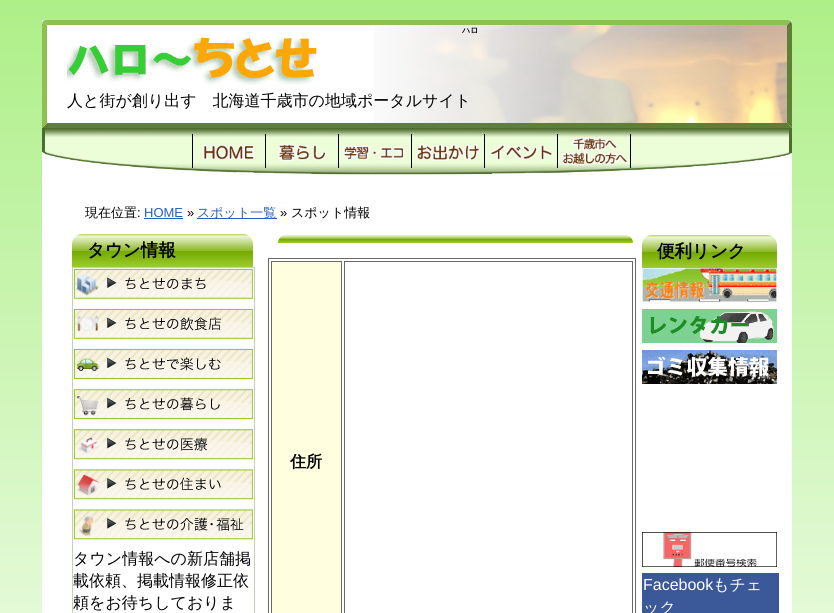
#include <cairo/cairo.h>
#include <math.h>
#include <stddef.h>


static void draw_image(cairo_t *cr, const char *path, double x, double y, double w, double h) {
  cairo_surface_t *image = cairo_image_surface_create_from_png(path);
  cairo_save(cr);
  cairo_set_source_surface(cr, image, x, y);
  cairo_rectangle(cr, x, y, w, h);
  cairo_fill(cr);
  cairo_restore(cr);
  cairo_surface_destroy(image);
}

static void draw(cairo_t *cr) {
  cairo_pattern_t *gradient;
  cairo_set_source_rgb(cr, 1, 1, 1);
  cairo_paint(cr);
  gradient = cairo_pattern_create_linear(417, 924, 417, 0);
  cairo_pattern_add_color_stop_rgba(gradient, 0, 1, 1, 1, 1);
  cairo_pattern_add_color_stop_rgba(gradient, 1, 174 / 255.0, 239 / 255.0, 136 / 255.0, 1);
  cairo_set_source(cr, gradient);
  cairo_pattern_destroy(gradient);
  cairo_rectangle(cr, 0, 0, 834, 613);
  cairo_fill(cr);
  cairo_set_source_rgb(cr, 1, 1, 1);
  cairo_rectangle(cr, 42, 20, 750, 593);
  cairo_fill(cr);
  draw_image(cr, "images/1.png", 374, 25, 415, 100);
  cairo_set_source_rgb(cr, 140 / 255.0, 192 / 255.0, 81 / 255.0);
  cairo_new_path(cr);
  cairo_move_to(cr, 47, 20);
  cairo_curve_to(cr, 46, 20, 44, 20, 43, 21);
  cairo_line_to(cr, 47, 25);
  cairo_line_to(cr, 787, 25);
  cairo_line_to(cr, 791, 21);
  cairo_curve_to(cr, 790, 20, 788, 20, 787, 20);
  cairo_close_path(cr);
  cairo_fill(cr);
  cairo_set_source_rgb(cr, 93 / 255.0, 128 / 255.0, 54 / 255.0);
  cairo_new_path(cr);
  cairo_move_to(cr, 792, 128);
  cairo_line_to(cr, 792, 24);
  cairo_line_to(cr, 791, 21);
  cairo_line_to(cr, 787, 25);
  cairo_line_to(cr, 787, 123);
  cairo_close_path(cr);
  cairo_fill(cr);
  cairo_new_path(cr);
  cairo_move_to(cr, 792, 128);
  cairo_line_to(cr, 787, 123);
  cairo_line_to(cr, 47, 123);
  cairo_line_to(cr, 42, 128);
  cairo_close_path(cr);
  cairo_fill(cr);
  cairo_set_source_rgb(cr, 140 / 255.0, 192 / 255.0, 81 / 255.0);
  cairo_new_path(cr);
  cairo_move_to(cr, 47, 25);
  cairo_line_to(cr, 43, 21);
  cairo_line_to(cr, 42, 24);
  cairo_line_to(cr, 42, 128);
  cairo_line_to(cr, 47, 123);
  cairo_close_path(cr);
  cairo_fill(cr);
  draw_image(cr, "images/2.png", 67, 37, 250, 48);
  draw_image(cr, "images/3.png", 42, 128, 750, 47);
  draw_image(cr, "images/4.png", 202, 144, 53, 17);
  cairo_set_source_rgb(cr, 0, 0, 0);
  cairo_rectangle(cr, 192, 134, 1, 34);
  cairo_fill(cr);
  draw_image(cr, "images/5.png", 278, 143, 49, 19);
  cairo_rectangle(cr, 265, 134, 1, 34);
  cairo_fill(cr);
  draw_image(cr, "images/6.png", 343, 145, 62, 16);
  cairo_rectangle(cr, 338, 134, 1, 34);
  cairo_fill(cr);
  draw_image(cr, "images/7.png", 416, 143, 65, 18);
  cairo_rectangle(cr, 411, 134, 1, 34);
  cairo_fill(cr);
  draw_image(cr, "images/8.png", 490, 144, 63, 17);
  cairo_rectangle(cr, 484, 134, 1, 34);
  cairo_fill(cr);
  draw_image(cr, "images/9.png", 561, 137, 68, 29);
  cairo_rectangle(cr, 630, 134, 1, 34);
  cairo_fill(cr);
  cairo_rectangle(cr, 557, 134, 1, 34);
  cairo_fill(cr);
  cairo_set_source_rgb(cr, 36 / 255.0, 95 / 255.0, 187 / 255.0);
  cairo_rectangle(cr, 144, 218, 39, 1);
  cairo_fill(cr);
  cairo_rectangle(cr, 197, 218, 80, 1);
  cairo_fill(cr);
  gradient = cairo_pattern_create_linear(163, 234, 163, 267);
  cairo_pattern_add_color_stop_rgba(gradient, 0, 191 / 255.0, 210 / 255.0, 85 / 255.0, 1);
  cairo_pattern_add_color_stop_rgba(gradient, 0.07, 235 / 255.0, 244 / 255.0, 212 / 255.0, 1);
  cairo_pattern_add_color_stop_rgba(gradient, 0.5, 142 / 255.0, 185 / 255.0, 42 / 255.0, 1);
  cairo_pattern_add_color_stop_rgba(gradient, 0.52, 114 / 255.0, 170 / 255.0, 0, 1);
  cairo_pattern_add_color_stop_rgba(gradient, 1, 158 / 255.0, 203 / 255.0, 45 / 255.0, 1);
  cairo_set_source(cr, gradient);
  cairo_pattern_destroy(gradient);
  cairo_new_path(cr);
  cairo_move_to(cr, 82, 234);
  cairo_line_to(cr, 243, 234);
  cairo_curve_to(cr, 248.5, 234, 253, 238.5, 253, 244);
  cairo_line_to(cr, 253, 267);
  cairo_line_to(cr, 72, 267);
  cairo_line_to(cr, 72, 244);
  cairo_curve_to(cr, 72, 238.5, 76.5, 234, 82, 234);
  cairo_close_path(cr);
  cairo_fill(cr);
  cairo_rectangle(cr, 72.5, 267.5, 182, 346);
  cairo_set_source_rgb(cr, 192 / 255.0, 210 / 255.0, 174 / 255.0);
  cairo_set_line_width(cr, 1);
  cairo_stroke(cr);
  draw_image(cr, "images/10.png", 73, 268, 180, 31);
  draw_image(cr, "images/11.png", 73, 309, 180, 30);
  draw_image(cr, "images/12.png", 73, 348, 180, 31);
  draw_image(cr, "images/13.png", 73, 388, 180, 32);
  draw_image(cr, "images/14.png", 73, 429, 180, 31);
  draw_image(cr, "images/15.png", 73, 469, 180, 31);
  draw_image(cr, "images/16.png", 73, 509, 180, 31);
  gradient = cairo_pattern_create_linear(456, 235, 456, 243);
  cairo_pattern_add_color_stop_rgba(gradient, 0, 191 / 255.0, 210 / 255.0, 85 / 255.0, 1);
  cairo_pattern_add_color_stop_rgba(gradient, 0.07, 235 / 255.0, 244 / 255.0, 212 / 255.0, 1);
  cairo_pattern_add_color_stop_rgba(gradient, 0.5, 142 / 255.0, 185 / 255.0, 42 / 255.0, 1);
  cairo_pattern_add_color_stop_rgba(gradient, 0.52, 114 / 255.0, 170 / 255.0, 0, 1);
  cairo_pattern_add_color_stop_rgba(gradient, 1, 158 / 255.0, 203 / 255.0, 45 / 255.0, 1);
  cairo_set_source(cr, gradient);
  cairo_pattern_destroy(gradient);
  cairo_new_path(cr);
  cairo_move_to(cr, 286, 235);
  cairo_line_to(cr, 625, 235);
  cairo_curve_to(cr, 629.5, 235, 633, 238.5, 633, 243);
  cairo_line_to(cr, 278, 243);
  cairo_curve_to(cr, 278, 238.5, 281.5, 235, 286, 235);
  cairo_close_path(cr);
  cairo_fill(cr);
  cairo_rectangle(cr, 268.5, 258.5, 367, 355);
  cairo_set_source_rgb(cr, 105 / 255.0, 105 / 255.0, 105 / 255.0);
  cairo_stroke(cr);
  cairo_set_source_rgb(cr, 1, 1, 224 / 255.0);
  cairo_rectangle(cr, 271.5, 261.5, 70, 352);
  cairo_fill_preserve(cr);
  cairo_set_source_rgb(cr, 105 / 255.0, 105 / 255.0, 105 / 255.0);
  cairo_stroke(cr);
  cairo_rectangle(cr, 344.5, 261.5, 288, 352);
  cairo_stroke(cr);
  gradient = cairo_pattern_create_linear(710, 235, 710, 268);
  cairo_pattern_add_color_stop_rgba(gradient, 0, 191 / 255.0, 210 / 255.0, 85 / 255.0, 1);
  cairo_pattern_add_color_stop_rgba(gradient, 0.07, 235 / 255.0, 244 / 255.0, 212 / 255.0, 1);
  cairo_pattern_add_color_stop_rgba(gradient, 0.5, 142 / 255.0, 185 / 255.0, 42 / 255.0, 1);
  cairo_pattern_add_color_stop_rgba(gradient, 0.52, 114 / 255.0, 170 / 255.0, 0, 1);
  cairo_pattern_add_color_stop_rgba(gradient, 1, 158 / 255.0, 203 / 255.0, 45 / 255.0, 1);
  cairo_set_source(cr, gradient);
  cairo_pattern_destroy(gradient);
  cairo_new_path(cr);
  cairo_move_to(cr, 652, 235);
  cairo_line_to(cr, 767, 235);
  cairo_curve_to(cr, 772.5, 235, 777, 239.5, 777, 245);
  cairo_line_to(cr, 777, 268);
  cairo_line_to(cr, 642, 268);
  cairo_line_to(cr, 642, 245);
  cairo_curve_to(cr, 642, 239.5, 646.5, 235, 652, 235);
  cairo_close_path(cr);
  cairo_fill(cr);
  draw_image(cr, "images/17.png", 642, 268, 135, 34);
  draw_image(cr, "images/18.png", 642, 309, 135, 34);
  draw_image(cr, "images/19.png", 642, 350, 135, 34);
  draw_image(cr, "images/20.png", 642, 532, 135, 35);
  cairo_rectangle(cr, 642.5, 573.5, 136, 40);
  cairo_set_source_rgb(cr, 59 / 255.0, 89 / 255.0, 152 / 255.0);
  cairo_stroke(cr);
  cairo_rectangle(cr, 643, 574, 135, 39);
  cairo_fill(cr);
  cairo_select_font_face(cr, "WenQuanYi Zen Hei", CAIRO_FONT_SLANT_NORMAL, CAIRO_FONT_WEIGHT_BOLD);
  cairo_set_font_size(cr, 8);
  cairo_set_source_rgb(cr, 0, 0, 0);
  cairo_move_to(cr, 462, 33);
  cairo_show_text(cr, "ハロ");
  cairo_select_font_face(cr, "WenQuanYi Zen Hei Medium", CAIRO_FONT_SLANT_NORMAL, CAIRO_FONT_WEIGHT_NORMAL);
  cairo_set_font_size(cr, 16);
  cairo_move_to(cr, 67, 106);
  cairo_show_text(cr, "人と街が創り出す　北海道千歳市の地域ポータルサイト");
  cairo_set_font_size(cr, 13);
  cairo_move_to(cr, 85, 217);
  cairo_show_text(cr, "現在位置");
  cairo_select_font_face(cr, "Liberation Sans", CAIRO_FONT_SLANT_NORMAL, CAIRO_FONT_WEIGHT_NORMAL);
  cairo_move_to(cr, 137, 217);
  cairo_show_text(cr, ":");
  cairo_set_source_rgb(cr, 36 / 255.0, 95 / 255.0, 187 / 255.0);
  cairo_move_to(cr, 144, 217);
  cairo_show_text(cr, "HOME");
  cairo_set_source_rgb(cr, 0, 0, 0);
  cairo_move_to(cr, 187, 217);
  cairo_show_text(cr, "»");
  cairo_select_font_face(cr, "WenQuanYi Zen Hei Medium", CAIRO_FONT_SLANT_NORMAL, CAIRO_FONT_WEIGHT_NORMAL);
  cairo_set_source_rgb(cr, 36 / 255.0, 95 / 255.0, 187 / 255.0);
  cairo_move_to(cr, 197, 217);
  cairo_show_text(cr, "スポット一覧");
  cairo_select_font_face(cr, "Liberation Sans", CAIRO_FONT_SLANT_NORMAL, CAIRO_FONT_WEIGHT_NORMAL);
  cairo_set_source_rgb(cr, 0, 0, 0);
  cairo_move_to(cr, 280, 217);
  cairo_show_text(cr, "»");
  cairo_select_font_face(cr, "WenQuanYi Zen Hei Medium", CAIRO_FONT_SLANT_NORMAL, CAIRO_FONT_WEIGHT_NORMAL);
  cairo_move_to(cr, 291, 217);
  cairo_show_text(cr, "スポット情報");
  cairo_select_font_face(cr, "WenQuanYi Zen Hei", CAIRO_FONT_SLANT_NORMAL, CAIRO_FONT_WEIGHT_BOLD);
  cairo_set_font_size(cr, 17.5);
  cairo_move_to(cr, 87, 256);
  cairo_show_text(cr, "タウン情報");
  cairo_select_font_face(cr, "WenQuanYi Zen Hei Medium", CAIRO_FONT_SLANT_NORMAL, CAIRO_FONT_WEIGHT_NORMAL);
  cairo_set_font_size(cr, 16);
  cairo_move_to(cr, 73, 564);
  cairo_show_text(cr, "タウン情報への新店舗掲");
  cairo_move_to(cr, 73, 586);
  cairo_show_text(cr, "載依頼、掲載情報修正依");
  cairo_move_to(cr, 73, 608);
  cairo_show_text(cr, "頼をお待ちしておりま");
  cairo_select_font_face(cr, "WenQuanYi Zen Hei", CAIRO_FONT_SLANT_NORMAL, CAIRO_FONT_WEIGHT_BOLD);
  cairo_move_to(cr, 290, 467);
  cairo_show_text(cr, "住所");
  cairo_set_font_size(cr, 17.5);
  cairo_move_to(cr, 657, 257);
  cairo_show_text(cr, "便利リンク");
  cairo_select_font_face(cr, "Liberation Sans", CAIRO_FONT_SLANT_NORMAL, CAIRO_FONT_WEIGHT_NORMAL);
  cairo_set_font_size(cr, 16);
  cairo_set_source_rgb(cr, 1, 1, 1);
  cairo_move_to(cr, 643, 590);
  cairo_show_text(cr, "Facebook");
  cairo_select_font_face(cr, "WenQuanYi Zen Hei Medium", CAIRO_FONT_SLANT_NORMAL, CAIRO_FONT_WEIGHT_NORMAL);
  cairo_move_to(cr, 713, 590);
  cairo_show_text(cr, "もチェ");
  cairo_move_to(cr, 643, 613);
  cairo_show_text(cr, "ック");
}

int main(void) {
  cairo_surface_t *surface = cairo_image_surface_create(CAIRO_FORMAT_RGB24, 834, 613);
  cairo_t *cr = cairo_create(surface);
  cairo_font_options_t *options = cairo_font_options_create();
  cairo_font_options_set_hint_metrics(options, CAIRO_HINT_METRICS_OFF);
  cairo_font_options_set_hint_style(options, CAIRO_HINT_STYLE_NONE);
  cairo_set_font_options(cr, options);
  cairo_set_miter_limit(cr, 4);
  draw(cr);
  cairo_surface_write_to_png(surface, "out.png");
  cairo_font_options_destroy(options);
  cairo_destroy(cr);
  cairo_surface_destroy(surface);
  return 0;
}
